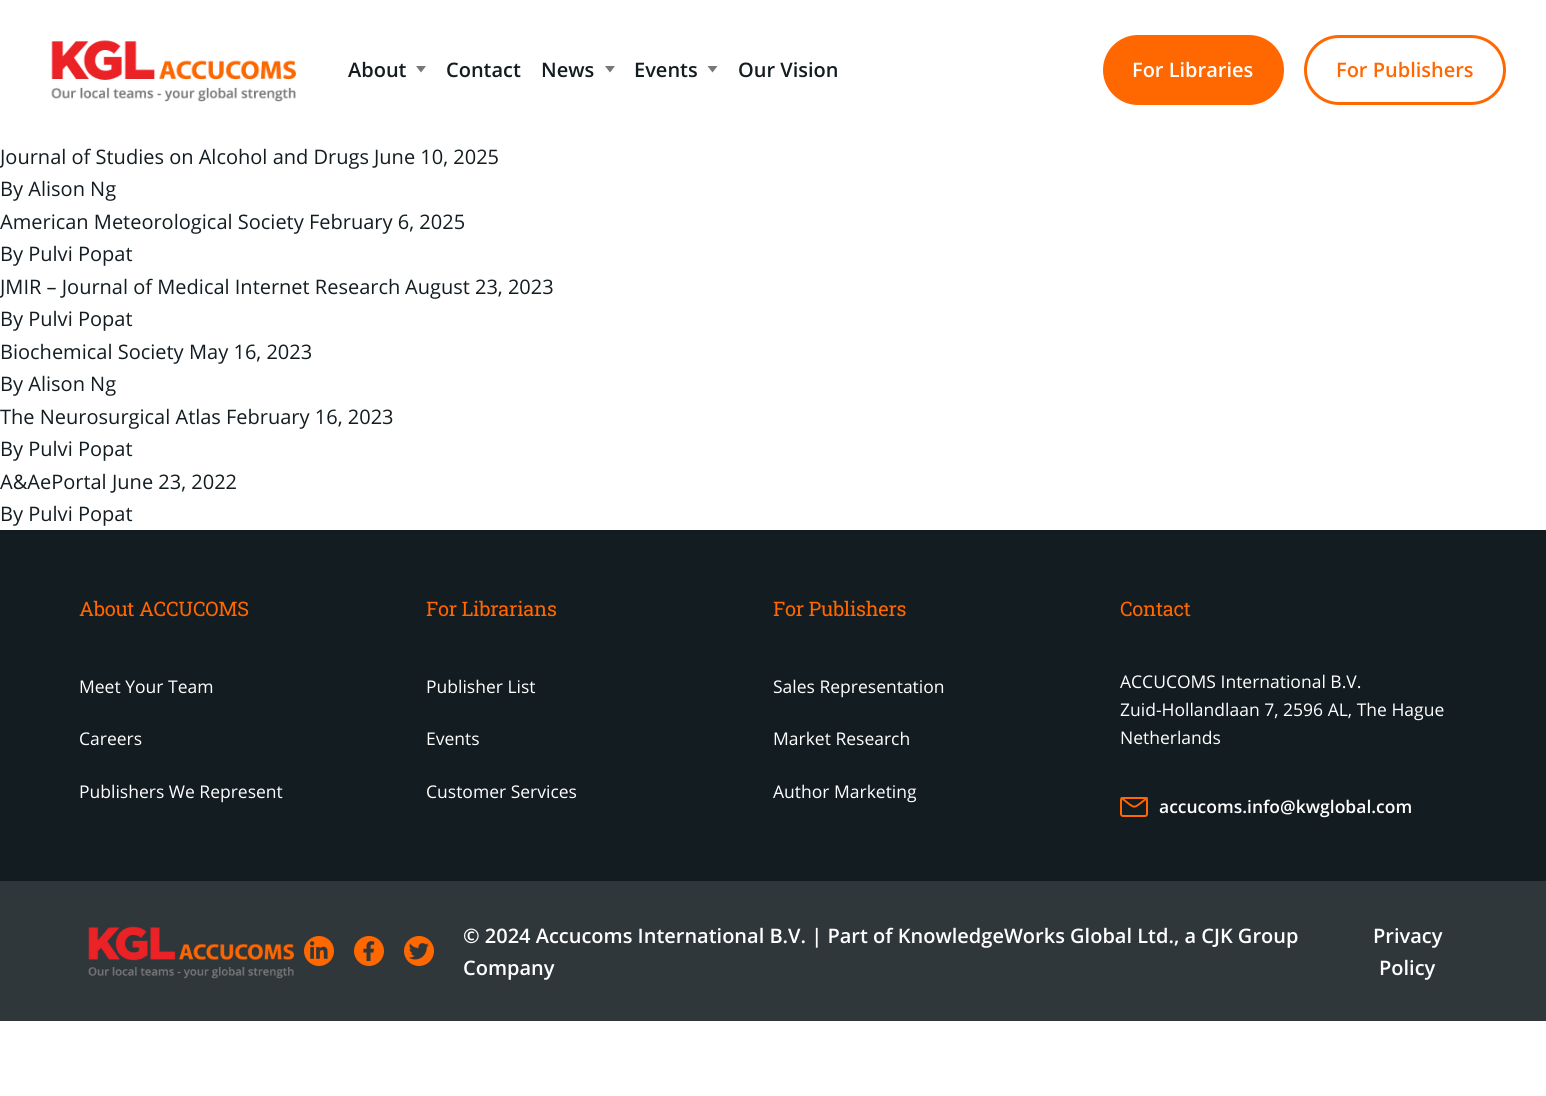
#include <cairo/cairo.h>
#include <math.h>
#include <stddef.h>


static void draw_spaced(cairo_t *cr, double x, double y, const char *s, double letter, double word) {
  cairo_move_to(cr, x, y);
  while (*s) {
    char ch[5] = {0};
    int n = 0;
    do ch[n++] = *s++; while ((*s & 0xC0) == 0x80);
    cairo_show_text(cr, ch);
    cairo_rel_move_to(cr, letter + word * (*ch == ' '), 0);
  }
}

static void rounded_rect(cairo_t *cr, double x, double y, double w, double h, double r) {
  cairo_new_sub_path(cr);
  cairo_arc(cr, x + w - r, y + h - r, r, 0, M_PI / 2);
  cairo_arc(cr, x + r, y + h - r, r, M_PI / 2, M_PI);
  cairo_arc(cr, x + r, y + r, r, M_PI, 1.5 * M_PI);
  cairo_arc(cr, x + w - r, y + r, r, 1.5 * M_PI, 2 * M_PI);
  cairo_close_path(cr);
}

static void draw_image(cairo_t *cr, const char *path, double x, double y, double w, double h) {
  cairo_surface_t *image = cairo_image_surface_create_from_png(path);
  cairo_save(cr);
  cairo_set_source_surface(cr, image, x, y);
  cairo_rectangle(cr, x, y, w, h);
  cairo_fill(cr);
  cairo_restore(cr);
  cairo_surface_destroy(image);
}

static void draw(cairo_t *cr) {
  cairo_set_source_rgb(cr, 1, 1, 1);
  cairo_paint(cr);
  draw_image(cr, "images/1.png", 51, 40, 245, 62);
  cairo_set_source_rgb(cr, 119 / 255.0, 118 / 255.0, 122 / 255.0);
  cairo_new_path(cr);
  cairo_move_to(cr, 416, 66);
  cairo_line_to(cr, 421, 72.5);
  cairo_line_to(cr, 426, 66);
  cairo_close_path(cr);
  cairo_fill(cr);
  cairo_new_path(cr);
  cairo_move_to(cr, 605, 66);
  cairo_line_to(cr, 610, 72.5);
  cairo_line_to(cr, 615, 66);
  cairo_close_path(cr);
  cairo_fill(cr);
  cairo_new_path(cr);
  cairo_move_to(cr, 707.5, 66);
  cairo_line_to(cr, 712.5, 72.5);
  cairo_line_to(cr, 717.5, 66);
  cairo_close_path(cr);
  cairo_fill(cr);
  cairo_set_source_rgb(cr, 1, 103 / 255.0, 0);
  rounded_rect(cr, 1103, 35, 181, 70, 35);
  cairo_fill(cr);
  rounded_rect(cr, 1305.5, 36.5, 199, 67, 33.5);
  cairo_set_line_width(cr, 3);
  cairo_stroke(cr);
  cairo_set_source_rgb(cr, 19 / 255.0, 28 / 255.0, 32 / 255.0);
  cairo_rectangle(cr, 0, 530, 1546, 351);
  cairo_fill(cr);
  rounded_rect(cr, 1121, 798, 26, 18, 2);
  cairo_set_source_rgb(cr, 1, 103 / 255.0, 0);
  cairo_set_line_width(cr, 2);
  cairo_stroke(cr);
  cairo_new_path(cr);
  cairo_move_to(cr, 1147, 798);
  cairo_curve_to(cr, 1132, 809.5, 1136.5, 809.5, 1121.5, 798);
  cairo_set_line_width(cr, 1.9);
  cairo_set_line_cap(cr, CAIRO_LINE_CAP_ROUND);
  cairo_set_line_join(cr, CAIRO_LINE_JOIN_ROUND);
  cairo_stroke(cr);
  cairo_set_source_rgb(cr, 48 / 255.0, 55 / 255.0, 59 / 255.0);
  cairo_rectangle(cr, 0, 881, 1546, 140);
  cairo_fill(cr);
  draw_image(cr, "images/2.png", 88, 926, 206, 53);
  cairo_set_source_rgb(cr, 1, 103 / 255.0, 0);
  cairo_arc(cr, 319, 951, 15, 0, 2 * M_PI);
  cairo_fill(cr);
  draw_image(cr, "images/3.png", 310, 941, 18, 18);
  cairo_arc(cr, 369, 951, 15, 0, 2 * M_PI);
  cairo_fill(cr);
  draw_image(cr, "images/4.png", 363, 941, 12, 20);
  cairo_arc(cr, 419, 951, 15, 0, 2 * M_PI);
  cairo_fill(cr);
  draw_image(cr, "images/5.png", 409, 943, 20, 17);
  cairo_select_font_face(cr, "Open Sans SemiBold", CAIRO_FONT_SLANT_NORMAL, CAIRO_FONT_WEIGHT_NORMAL);
  cairo_set_font_size(cr, 20);
  cairo_set_source_rgb(cr, 19 / 255.0, 28 / 255.0, 32 / 255.0);
  cairo_move_to(cr, 348, 77);
  cairo_show_text(cr, "About");
  cairo_move_to(cr, 446, 77);
  cairo_show_text(cr, "Contact");
  cairo_move_to(cr, 541, 77);
  cairo_show_text(cr, "News");
  cairo_move_to(cr, 634, 77);
  cairo_show_text(cr, "Events");
  cairo_move_to(cr, 738, 77);
  cairo_show_text(cr, "Our Vision");
  cairo_set_source_rgb(cr, 1, 1, 1);
  cairo_move_to(cr, 1132, 77);
  cairo_show_text(cr, "For Libraries");
  cairo_set_source_rgb(cr, 1, 103 / 255.0, 0);
  cairo_move_to(cr, 1336, 77);
  cairo_show_text(cr, "For Publishers");
  cairo_select_font_face(cr, "Open Sans", CAIRO_FONT_SLANT_NORMAL, CAIRO_FONT_WEIGHT_NORMAL);
  cairo_set_source_rgb(cr, 19 / 255.0, 28 / 255.0, 32 / 255.0);
  cairo_move_to(cr, 0, 164);
  cairo_show_text(cr, "Journal of Studies on Alcohol and Drugs");
  cairo_move_to(cr, 374, 164);
  cairo_show_text(cr, "June 10, 2025");
  cairo_move_to(cr, 0, 196);
  cairo_show_text(cr, "By Alison Ng");
  cairo_move_to(cr, 0, 229);
  cairo_show_text(cr, "American Meteorological Society");
  cairo_move_to(cr, 309, 229);
  cairo_show_text(cr, "February 6, 2025");
  cairo_move_to(cr, 0, 261);
  cairo_show_text(cr, "By Pulvi Popat");
  cairo_move_to(cr, 0, 294);
  cairo_show_text(cr, "JMIR – Journal of Medical Internet Research");
  cairo_move_to(cr, 405, 294);
  cairo_show_text(cr, "August 23, 2023");
  cairo_move_to(cr, 0, 326);
  cairo_show_text(cr, "By Pulvi Popat");
  cairo_move_to(cr, 0, 359);
  cairo_show_text(cr, "Biochemical Society");
  cairo_move_to(cr, 189, 359);
  cairo_show_text(cr, "May 16, 2023");
  cairo_move_to(cr, 0, 391);
  cairo_show_text(cr, "By Alison Ng");
  cairo_move_to(cr, 0, 424);
  cairo_show_text(cr, "The Neurosurgical Atlas");
  cairo_move_to(cr, 226, 424);
  cairo_show_text(cr, "February 16, 2023");
  cairo_move_to(cr, 0, 456);
  cairo_show_text(cr, "By Pulvi Popat");
  cairo_move_to(cr, 0, 489);
  cairo_show_text(cr, "A&AePortal");
  cairo_move_to(cr, 112, 489);
  cairo_show_text(cr, "June 23, 2022");
  cairo_move_to(cr, 0, 521);
  cairo_show_text(cr, "By Pulvi Popat");
  cairo_select_font_face(cr, "Roboto Slab", CAIRO_FONT_SLANT_NORMAL, CAIRO_FONT_WEIGHT_NORMAL);
  cairo_set_source_rgb(cr, 1, 103 / 255.0, 0);
  draw_spaced(cr, 79, 616, "About ACCUCOMS", -0.25, 0);
  cairo_select_font_face(cr, "Open Sans", CAIRO_FONT_SLANT_NORMAL, CAIRO_FONT_WEIGHT_NORMAL);
  cairo_set_font_size(cr, 17.5);
  cairo_set_source_rgb(cr, 1, 1, 1);
  cairo_move_to(cr, 79, 693);
  cairo_show_text(cr, "Meet Your Team");
  cairo_move_to(cr, 79, 745);
  cairo_show_text(cr, "Careers");
  cairo_move_to(cr, 79, 798);
  cairo_show_text(cr, "Publishers We Represent");
  cairo_select_font_face(cr, "Roboto Slab", CAIRO_FONT_SLANT_NORMAL, CAIRO_FONT_WEIGHT_NORMAL);
  cairo_set_font_size(cr, 20);
  cairo_set_source_rgb(cr, 1, 103 / 255.0, 0);
  draw_spaced(cr, 426, 616, "For Librarians", -0.25, 0);
  cairo_select_font_face(cr, "Open Sans", CAIRO_FONT_SLANT_NORMAL, CAIRO_FONT_WEIGHT_NORMAL);
  cairo_set_font_size(cr, 17.5);
  cairo_set_source_rgb(cr, 1, 1, 1);
  cairo_move_to(cr, 426, 693);
  cairo_show_text(cr, "Publisher List");
  cairo_move_to(cr, 426, 745);
  cairo_show_text(cr, "Events");
  cairo_move_to(cr, 426, 798);
  cairo_show_text(cr, "Customer Services");
  cairo_select_font_face(cr, "Roboto Slab", CAIRO_FONT_SLANT_NORMAL, CAIRO_FONT_WEIGHT_NORMAL);
  cairo_set_font_size(cr, 20);
  cairo_set_source_rgb(cr, 1, 103 / 255.0, 0);
  draw_spaced(cr, 773, 616, "For Publishers", -0.25, 0);
  cairo_select_font_face(cr, "Open Sans", CAIRO_FONT_SLANT_NORMAL, CAIRO_FONT_WEIGHT_NORMAL);
  cairo_set_font_size(cr, 17.5);
  cairo_set_source_rgb(cr, 1, 1, 1);
  cairo_move_to(cr, 773, 693);
  cairo_show_text(cr, "Sales Representation");
  cairo_move_to(cr, 773, 745);
  cairo_show_text(cr, "Market Research");
  cairo_move_to(cr, 773, 798);
  cairo_show_text(cr, "Author Marketing");
  cairo_select_font_face(cr, "Roboto Slab", CAIRO_FONT_SLANT_NORMAL, CAIRO_FONT_WEIGHT_NORMAL);
  cairo_set_font_size(cr, 20);
  cairo_set_source_rgb(cr, 1, 103 / 255.0, 0);
  draw_spaced(cr, 1120, 616, "Contact", -0.25, 0);
  cairo_select_font_face(cr, "Open Sans", CAIRO_FONT_SLANT_NORMAL, CAIRO_FONT_WEIGHT_NORMAL);
  cairo_set_font_size(cr, 17.5);
  cairo_set_source_rgb(cr, 1, 1, 1);
  cairo_move_to(cr, 1120, 688);
  cairo_show_text(cr, "ACCUCOMS International B.V.");
  cairo_move_to(cr, 1120, 716);
  cairo_show_text(cr, "Zuid-Hollandlaan 7, 2596 AL, The Hague");
  cairo_move_to(cr, 1120, 744);
  cairo_show_text(cr, "Netherlands");
  cairo_select_font_face(cr, "Open Sans SemiBold", CAIRO_FONT_SLANT_NORMAL, CAIRO_FONT_WEIGHT_NORMAL);
  cairo_move_to(cr, 1159, 813);
  cairo_show_text(cr, "accucoms.info@kwglobal.com");
  cairo_set_font_size(cr, 20);
  cairo_move_to(cr, 463, 943);
  cairo_show_text(cr, "© 2024 Accucoms International B.V. | Part of KnowledgeWorks Global Ltd., a CJK Group");
  cairo_move_to(cr, 463, 975);
  cairo_show_text(cr, "Company");
  cairo_move_to(cr, 1373, 943);
  cairo_show_text(cr, "Privacy");
  cairo_move_to(cr, 1379, 975);
  cairo_show_text(cr, "Policy");
}

int main(void) {
  cairo_surface_t *surface = cairo_image_surface_create(CAIRO_FORMAT_RGB24, 1546, 1096);
  cairo_t *cr = cairo_create(surface);
  cairo_font_options_t *options = cairo_font_options_create();
  cairo_font_options_set_hint_metrics(options, CAIRO_HINT_METRICS_OFF);
  cairo_font_options_set_hint_style(options, CAIRO_HINT_STYLE_NONE);
  cairo_set_font_options(cr, options);
  cairo_set_miter_limit(cr, 4);
  draw(cr);
  cairo_surface_write_to_png(surface, "out.png");
  cairo_font_options_destroy(options);
  cairo_destroy(cr);
  cairo_surface_destroy(surface);
  return 0;
}
